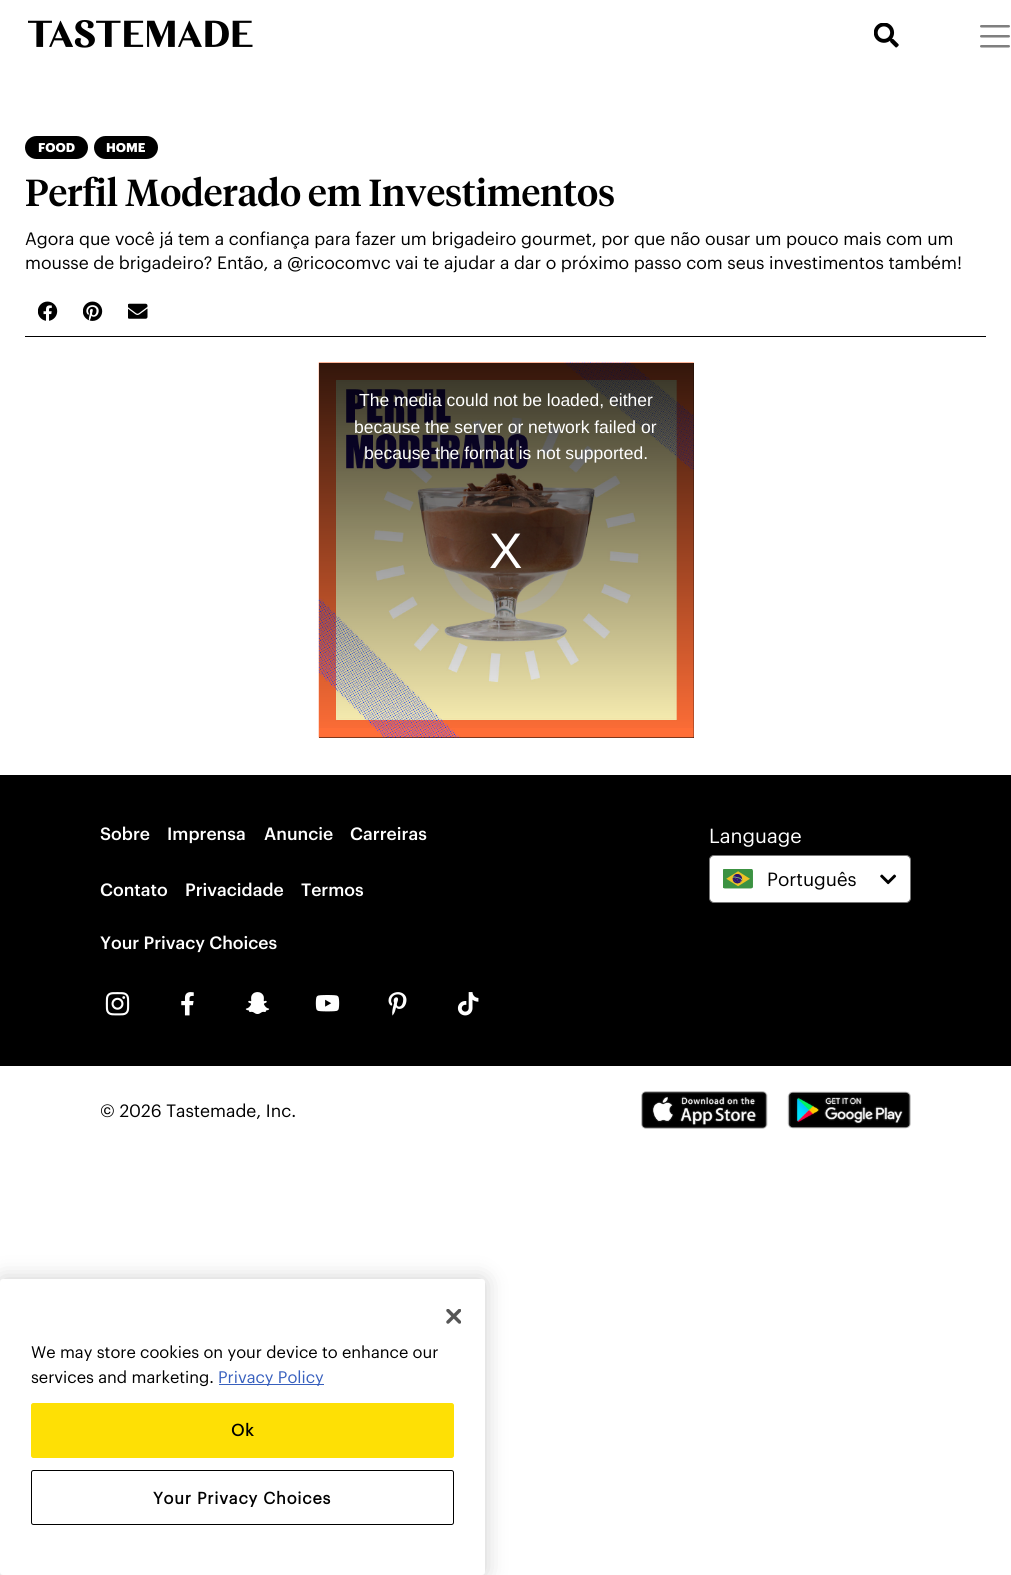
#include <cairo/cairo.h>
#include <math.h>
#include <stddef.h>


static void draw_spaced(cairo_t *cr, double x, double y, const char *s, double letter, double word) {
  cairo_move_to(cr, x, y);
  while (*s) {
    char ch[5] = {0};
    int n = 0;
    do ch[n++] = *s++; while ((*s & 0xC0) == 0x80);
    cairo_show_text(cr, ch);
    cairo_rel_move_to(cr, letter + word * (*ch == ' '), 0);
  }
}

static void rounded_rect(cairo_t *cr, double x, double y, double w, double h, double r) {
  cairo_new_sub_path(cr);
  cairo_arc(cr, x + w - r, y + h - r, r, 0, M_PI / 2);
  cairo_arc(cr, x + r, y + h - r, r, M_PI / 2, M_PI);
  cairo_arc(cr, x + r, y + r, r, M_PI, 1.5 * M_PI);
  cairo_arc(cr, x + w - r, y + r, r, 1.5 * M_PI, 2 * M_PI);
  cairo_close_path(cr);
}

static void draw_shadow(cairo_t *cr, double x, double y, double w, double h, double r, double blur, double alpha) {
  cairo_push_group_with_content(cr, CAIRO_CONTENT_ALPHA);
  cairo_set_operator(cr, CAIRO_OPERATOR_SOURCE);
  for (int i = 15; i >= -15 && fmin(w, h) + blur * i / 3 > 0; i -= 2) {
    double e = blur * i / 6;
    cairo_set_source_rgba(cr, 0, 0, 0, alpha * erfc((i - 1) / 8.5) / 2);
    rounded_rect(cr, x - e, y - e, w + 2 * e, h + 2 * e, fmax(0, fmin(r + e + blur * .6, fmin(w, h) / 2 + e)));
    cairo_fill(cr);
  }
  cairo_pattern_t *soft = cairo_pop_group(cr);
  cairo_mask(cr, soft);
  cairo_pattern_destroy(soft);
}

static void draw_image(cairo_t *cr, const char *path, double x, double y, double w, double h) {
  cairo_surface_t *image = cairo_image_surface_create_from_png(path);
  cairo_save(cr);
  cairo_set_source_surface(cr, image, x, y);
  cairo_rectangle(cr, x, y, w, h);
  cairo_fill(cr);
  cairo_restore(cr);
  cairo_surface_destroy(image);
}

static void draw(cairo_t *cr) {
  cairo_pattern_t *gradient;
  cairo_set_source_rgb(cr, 1, 1, 1);
  cairo_paint(cr);
  draw_image(cr, "images/1.png", 28, 20, 225, 28);
  draw_image(cr, "images/2.png", 874, 23, 25, 25);
  draw_image(cr, "images/3.png", 980, 25, 30, 23);
  cairo_set_source_rgb(cr, 0, 0, 0);
  rounded_rect(cr, 25, 136, 63, 23, 11.5);
  cairo_fill(cr);
  rounded_rect(cr, 94, 136, 64, 23, 11.5);
  cairo_fill(cr);
  cairo_rectangle(cr, 25, 336, 961, 1);
  cairo_fill(cr);
  draw_image(cr, "images/4.png", 38, 301, 20, 20);
  draw_image(cr, "images/5.png", 83, 301, 20, 20);
  draw_image(cr, "images/6.png", 128, 303, 20, 16);
  cairo_rectangle(cr, 319, 363, 375, 375);
  cairo_fill(cr);
  draw_image(cr, "images/7.png", 318, 362, 376, 376);
  gradient = cairo_pattern_create_linear(506, 363, 506, 738);
  cairo_pattern_add_color_stop_rgba(gradient, 0, 0, 0, 0, 0.8);
  cairo_pattern_add_color_stop_rgba(gradient, 1, 0, 0, 0, 0);
  cairo_set_source(cr, gradient);
  cairo_pattern_destroy(gradient);
  cairo_rectangle(cr, 319, 363, 375, 365);
  cairo_fill(cr);
  cairo_set_source_rgb(cr, 0, 0, 0);
  cairo_rectangle(cr, 0, 775, 1011, 291);
  cairo_fill(cr);
  draw_image(cr, "images/8.png", 105, 992, 25, 24);
  draw_image(cr, "images/9.png", 181, 992, 13, 24);
  draw_image(cr, "images/10.png", 245, 992, 25, 22);
  draw_image(cr, "images/11.png", 315, 995, 25, 17);
  draw_image(cr, "images/12.png", 388, 992, 19, 24);
  draw_image(cr, "images/13.png", 457, 992, 22, 24);
  cairo_set_source_rgb(cr, 1, 1, 1);
  rounded_rect(cr, 709.5, 855.5, 201, 47, 4.5);
  cairo_fill_preserve(cr);
  cairo_set_source_rgb(cr, 118 / 255.0, 118 / 255.0, 118 / 255.0);
  cairo_set_line_width(cr, 1);
  cairo_stroke(cr);
  draw_image(cr, "images/14.png", 723, 869, 30, 20);
  draw_image(cr, "images/15.png", 880, 874, 17, 11);
  draw_image(cr, "images/16.png", 641, 1091, 127, 38);
  draw_image(cr, "images/17.png", 787, 1091, 124, 38);
  cairo_set_source_rgb(cr, 0, 0, 0);
  draw_shadow(cr, 0, 1279, 485, 296, 3, 11, 0.2);
  cairo_set_source_rgb(cr, 1, 1, 1);
  rounded_rect(cr, 0, 1279, 485, 296, 3);
  cairo_fill(cr);
  draw_image(cr, "images/18.png", 446, 1309, 15, 15);
  cairo_set_source_rgb(cr, 56 / 255.0, 96 / 255.0, 190 / 255.0);
  cairo_rectangle(cr, 219, 1384, 105, 1);
  cairo_fill(cr);
  cairo_set_source_rgb(cr, 254 / 255.0, 224 / 255.0, 5 / 255.0);
  rounded_rect(cr, 31.5, 1403.5, 422, 54, 2);
  cairo_fill_preserve(cr);
  cairo_stroke(cr);
  rounded_rect(cr, 31.5, 1470.5, 422, 54, 2);
  cairo_set_source_rgb(cr, 0, 0, 0);
  cairo_stroke(cr);
  cairo_select_font_face(cr, "Graphik", CAIRO_FONT_SLANT_NORMAL, CAIRO_FONT_WEIGHT_BOLD);
  cairo_set_font_size(cr, 12.5);
  cairo_set_source_rgb(cr, 1, 1, 1);
  cairo_move_to(cr, 38, 152);
  cairo_show_text(cr, "FOOD");
  cairo_move_to(cr, 106, 152);
  cairo_show_text(cr, "HOME");
  cairo_select_font_face(cr, "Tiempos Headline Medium", CAIRO_FONT_SLANT_NORMAL, CAIRO_FONT_WEIGHT_NORMAL);
  cairo_set_font_size(cr, 37.5);
  cairo_set_source_rgb(cr, 0, 0, 0);
  cairo_move_to(cr, 25, 206);
  cairo_show_text(cr, "Perfil Moderado em Investimentos");
  cairo_select_font_face(cr, "Graphik", CAIRO_FONT_SLANT_NORMAL, CAIRO_FONT_WEIGHT_NORMAL);
  cairo_set_font_size(cr, 17.5);
  cairo_move_to(cr, 25, 245);
  cairo_show_text(cr, "Agora que você já tem a confiança para fazer um brigadeiro gourmet, por que não ousar um pouco mais com um");
  cairo_move_to(cr, 25, 269);
  cairo_show_text(cr, "mousse de brigadeiro? Então, a @ricocomvc vai te ajudar a dar o próximo passo com seus investimentos também!");
  cairo_select_font_face(cr, "Liberation Sans", CAIRO_FONT_SLANT_NORMAL, CAIRO_FONT_WEIGHT_NORMAL);
  cairo_set_source_rgb(cr, 1, 1, 1);
  cairo_move_to(cr, 359, 406);
  cairo_show_text(cr, "The media could not be loaded, either");
  cairo_move_to(cr, 354, 433);
  cairo_show_text(cr, "because the server or network failed or");
  cairo_move_to(cr, 364, 459);
  cairo_show_text(cr, "because the format is not supported.");
  cairo_set_font_size(cr, 50);
  cairo_move_to(cr, 489, 568);
  cairo_show_text(cr, "X");
  cairo_select_font_face(cr, "Graphik Medium", CAIRO_FONT_SLANT_NORMAL, CAIRO_FONT_WEIGHT_NORMAL);
  cairo_set_font_size(cr, 17.5);
  cairo_move_to(cr, 100, 840);
  cairo_show_text(cr, "Sobre");
  cairo_move_to(cr, 167, 840);
  cairo_show_text(cr, "Imprensa");
  cairo_move_to(cr, 264, 840);
  cairo_show_text(cr, "Anuncie");
  cairo_move_to(cr, 350, 840);
  cairo_show_text(cr, "Carreiras");
  cairo_move_to(cr, 100, 896);
  cairo_show_text(cr, "Contato");
  cairo_move_to(cr, 185, 896);
  cairo_show_text(cr, "Privacidade");
  cairo_move_to(cr, 301, 896);
  cairo_show_text(cr, "Termos");
  cairo_move_to(cr, 100, 949);
  cairo_show_text(cr, "Your Privacy Choices");
  cairo_select_font_face(cr, "Graphik", CAIRO_FONT_SLANT_NORMAL, CAIRO_FONT_WEIGHT_NORMAL);
  cairo_set_font_size(cr, 20);
  cairo_move_to(cr, 709, 843);
  cairo_show_text(cr, "Language");
  cairo_set_font_size(cr, 18.75);
  cairo_set_source_rgb(cr, 0, 0, 0);
  cairo_move_to(cr, 767, 886);
  cairo_show_text(cr, "Português");
  cairo_set_font_size(cr, 17.5);
  cairo_move_to(cr, 100, 1117);
  cairo_show_text(cr, "© 2026 Tastemade, Inc.");
  cairo_set_font_size(cr, 16.4);
  cairo_move_to(cr, 31, 1358);
  cairo_show_text(cr, "We may store cookies on your device to enhance our");
  cairo_move_to(cr, 31, 1383);
  cairo_show_text(cr, "services and marketing.");
  cairo_set_source_rgb(cr, 56 / 255.0, 96 / 255.0, 190 / 255.0);
  cairo_move_to(cr, 218, 1383);
  cairo_show_text(cr, "Privacy Policy");
  cairo_select_font_face(cr, "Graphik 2", CAIRO_FONT_SLANT_NORMAL, CAIRO_FONT_WEIGHT_BOLD);
  cairo_set_source_rgb(cr, 0, 0, 0);
  draw_spaced(cr, 231, 1436, "Ok", 0.8, 0);
  draw_spaced(cr, 153, 1504, "Your Privacy Choices", 0.8, 0);
}

int main(void) {
  cairo_surface_t *surface = cairo_image_surface_create(CAIRO_FORMAT_RGB24, 1011, 1575);
  cairo_t *cr = cairo_create(surface);
  cairo_font_options_t *options = cairo_font_options_create();
  cairo_font_options_set_hint_metrics(options, CAIRO_HINT_METRICS_OFF);
  cairo_font_options_set_hint_style(options, CAIRO_HINT_STYLE_NONE);
  cairo_set_font_options(cr, options);
  cairo_set_miter_limit(cr, 4);
  draw(cr);
  cairo_surface_write_to_png(surface, "out.png");
  cairo_font_options_destroy(options);
  cairo_destroy(cr);
  cairo_surface_destroy(surface);
  return 0;
}
